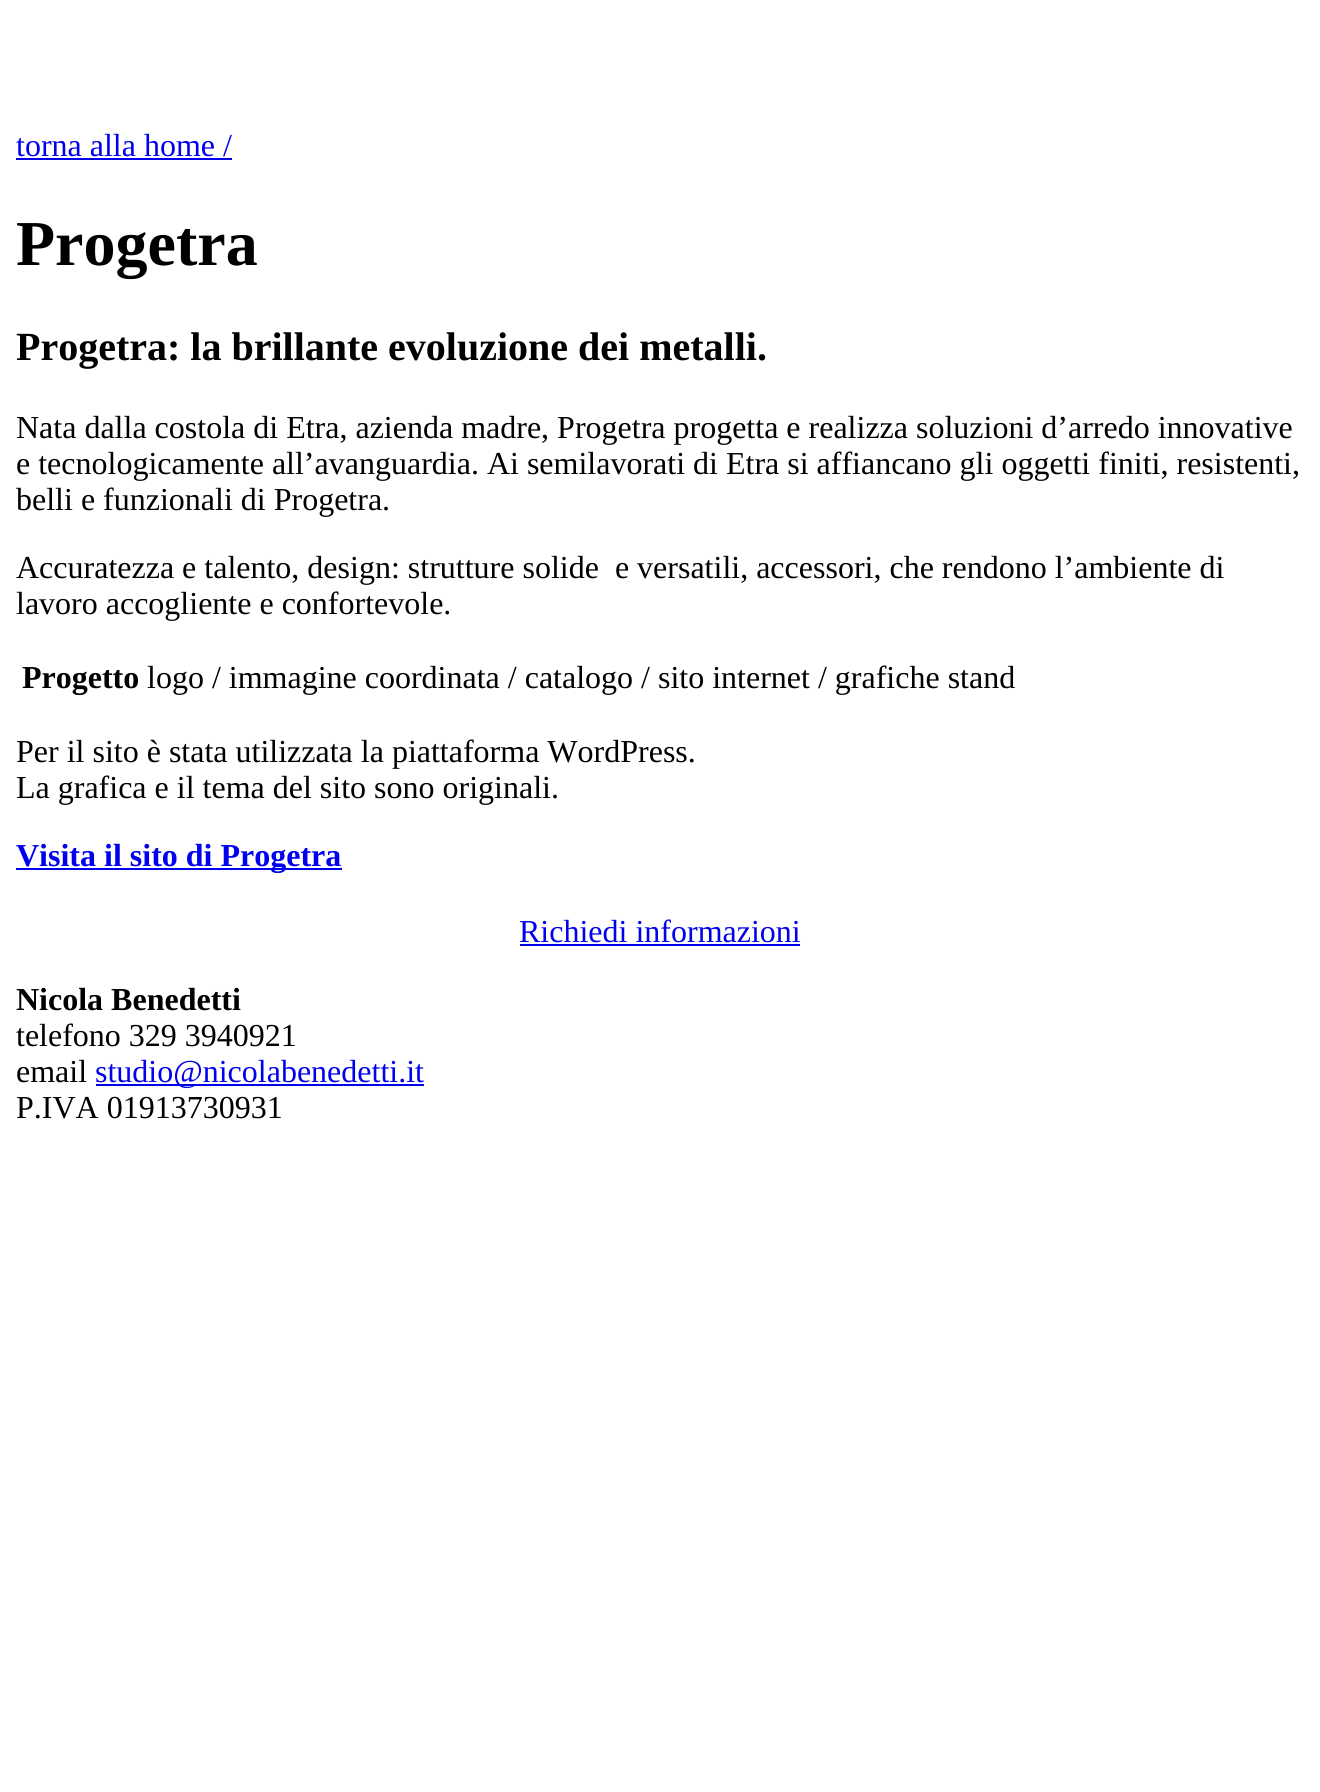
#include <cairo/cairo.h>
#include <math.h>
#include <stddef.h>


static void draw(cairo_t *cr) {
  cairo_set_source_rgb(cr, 1, 1, 1);
  cairo_paint(cr);
  cairo_set_source_rgb(cr, 0, 0, 238 / 255.0);
  cairo_rectangle(cr, 16, 158, 216, 2);
  cairo_fill(cr);
  cairo_rectangle(cr, 16, 868, 326, 2);
  cairo_fill(cr);
  cairo_rectangle(cr, 520, 944, 280, 2);
  cairo_fill(cr);
  cairo_rectangle(cr, 96, 1084, 328, 2);
  cairo_fill(cr);
  cairo_select_font_face(cr, "Liberation Serif", CAIRO_FONT_SLANT_NORMAL, CAIRO_FONT_WEIGHT_NORMAL);
  cairo_set_font_size(cr, 32);
  cairo_move_to(cr, 16, 156);
  cairo_show_text(cr, "torna alla home /");
  cairo_select_font_face(cr, "Liberation Serif", CAIRO_FONT_SLANT_NORMAL, CAIRO_FONT_WEIGHT_BOLD);
  cairo_set_font_size(cr, 64);
  cairo_set_source_rgb(cr, 0, 0, 0);
  cairo_move_to(cr, 16, 265);
  cairo_show_text(cr, "Progetra");
  cairo_set_font_size(cr, 40);
  cairo_move_to(cr, 16, 360);
  cairo_show_text(cr, "Progetra: la brillante evoluzione dei metalli.");
  cairo_select_font_face(cr, "Liberation Serif", CAIRO_FONT_SLANT_NORMAL, CAIRO_FONT_WEIGHT_NORMAL);
  cairo_set_font_size(cr, 32);
  cairo_move_to(cr, 16, 438);
  cairo_show_text(cr, "Nata dalla costola di Etra, azienda madre, Progetra progetta e realizza soluzioni d’arredo innovative");
  cairo_move_to(cr, 16, 474);
  cairo_show_text(cr, "e tecnologicamente all’avanguardia. Ai semilavorati di Etra si affiancano gli oggetti finiti, resistenti,");
  cairo_move_to(cr, 16, 510);
  cairo_show_text(cr, "belli e funzionali di Progetra.");
  cairo_move_to(cr, 16, 578);
  cairo_show_text(cr, "Accuratezza e talento, design: strutture solide  e versatili, accessori, che rendono l’ambiente di");
  cairo_move_to(cr, 16, 614);
  cairo_show_text(cr, "lavoro accogliente e confortevole.");
  cairo_select_font_face(cr, "Liberation Serif", CAIRO_FONT_SLANT_NORMAL, CAIRO_FONT_WEIGHT_BOLD);
  cairo_move_to(cr, 22, 688);
  cairo_show_text(cr, "Progetto");
  cairo_select_font_face(cr, "Liberation Serif", CAIRO_FONT_SLANT_NORMAL, CAIRO_FONT_WEIGHT_NORMAL);
  cairo_move_to(cr, 147, 688);
  cairo_show_text(cr, "logo / immagine coordinata / catalogo / sito internet / grafiche stand");
  cairo_move_to(cr, 16, 762);
  cairo_show_text(cr, "Per il sito è stata utilizzata la piattaforma WordPress.");
  cairo_move_to(cr, 16, 798);
  cairo_show_text(cr, "La grafica e il tema del sito sono originali.");
  cairo_select_font_face(cr, "Liberation Serif", CAIRO_FONT_SLANT_NORMAL, CAIRO_FONT_WEIGHT_BOLD);
  cairo_set_source_rgb(cr, 0, 0, 238 / 255.0);
  cairo_move_to(cr, 16, 866);
  cairo_show_text(cr, "Visita il sito di Progetra");
  cairo_select_font_face(cr, "Liberation Serif", CAIRO_FONT_SLANT_NORMAL, CAIRO_FONT_WEIGHT_NORMAL);
  cairo_move_to(cr, 519, 942);
  cairo_show_text(cr, "Richiedi informazioni");
  cairo_select_font_face(cr, "Liberation Serif", CAIRO_FONT_SLANT_NORMAL, CAIRO_FONT_WEIGHT_BOLD);
  cairo_set_source_rgb(cr, 0, 0, 0);
  cairo_move_to(cr, 16, 1010);
  cairo_show_text(cr, "Nicola Benedetti");
  cairo_select_font_face(cr, "Liberation Serif", CAIRO_FONT_SLANT_NORMAL, CAIRO_FONT_WEIGHT_NORMAL);
  cairo_move_to(cr, 16, 1046);
  cairo_show_text(cr, "telefono 329 3940921");
  cairo_move_to(cr, 16, 1082);
  cairo_show_text(cr, "email");
  cairo_set_source_rgb(cr, 0, 0, 238 / 255.0);
  cairo_move_to(cr, 95, 1082);
  cairo_show_text(cr, "studio@nicolabenedetti.it");
  cairo_set_source_rgb(cr, 0, 0, 0);
  cairo_move_to(cr, 16, 1118);
  cairo_show_text(cr, "P.IVA 01913730931");
}

int main(void) {
  cairo_surface_t *surface = cairo_image_surface_create(CAIRO_FORMAT_RGB24, 1320, 1792);
  cairo_t *cr = cairo_create(surface);
  cairo_font_options_t *options = cairo_font_options_create();
  cairo_font_options_set_hint_metrics(options, CAIRO_HINT_METRICS_OFF);
  cairo_font_options_set_hint_style(options, CAIRO_HINT_STYLE_NONE);
  cairo_set_font_options(cr, options);
  cairo_set_miter_limit(cr, 4);
  draw(cr);
  cairo_surface_write_to_png(surface, "out.png");
  cairo_font_options_destroy(options);
  cairo_destroy(cr);
  cairo_surface_destroy(surface);
  return 0;
}
